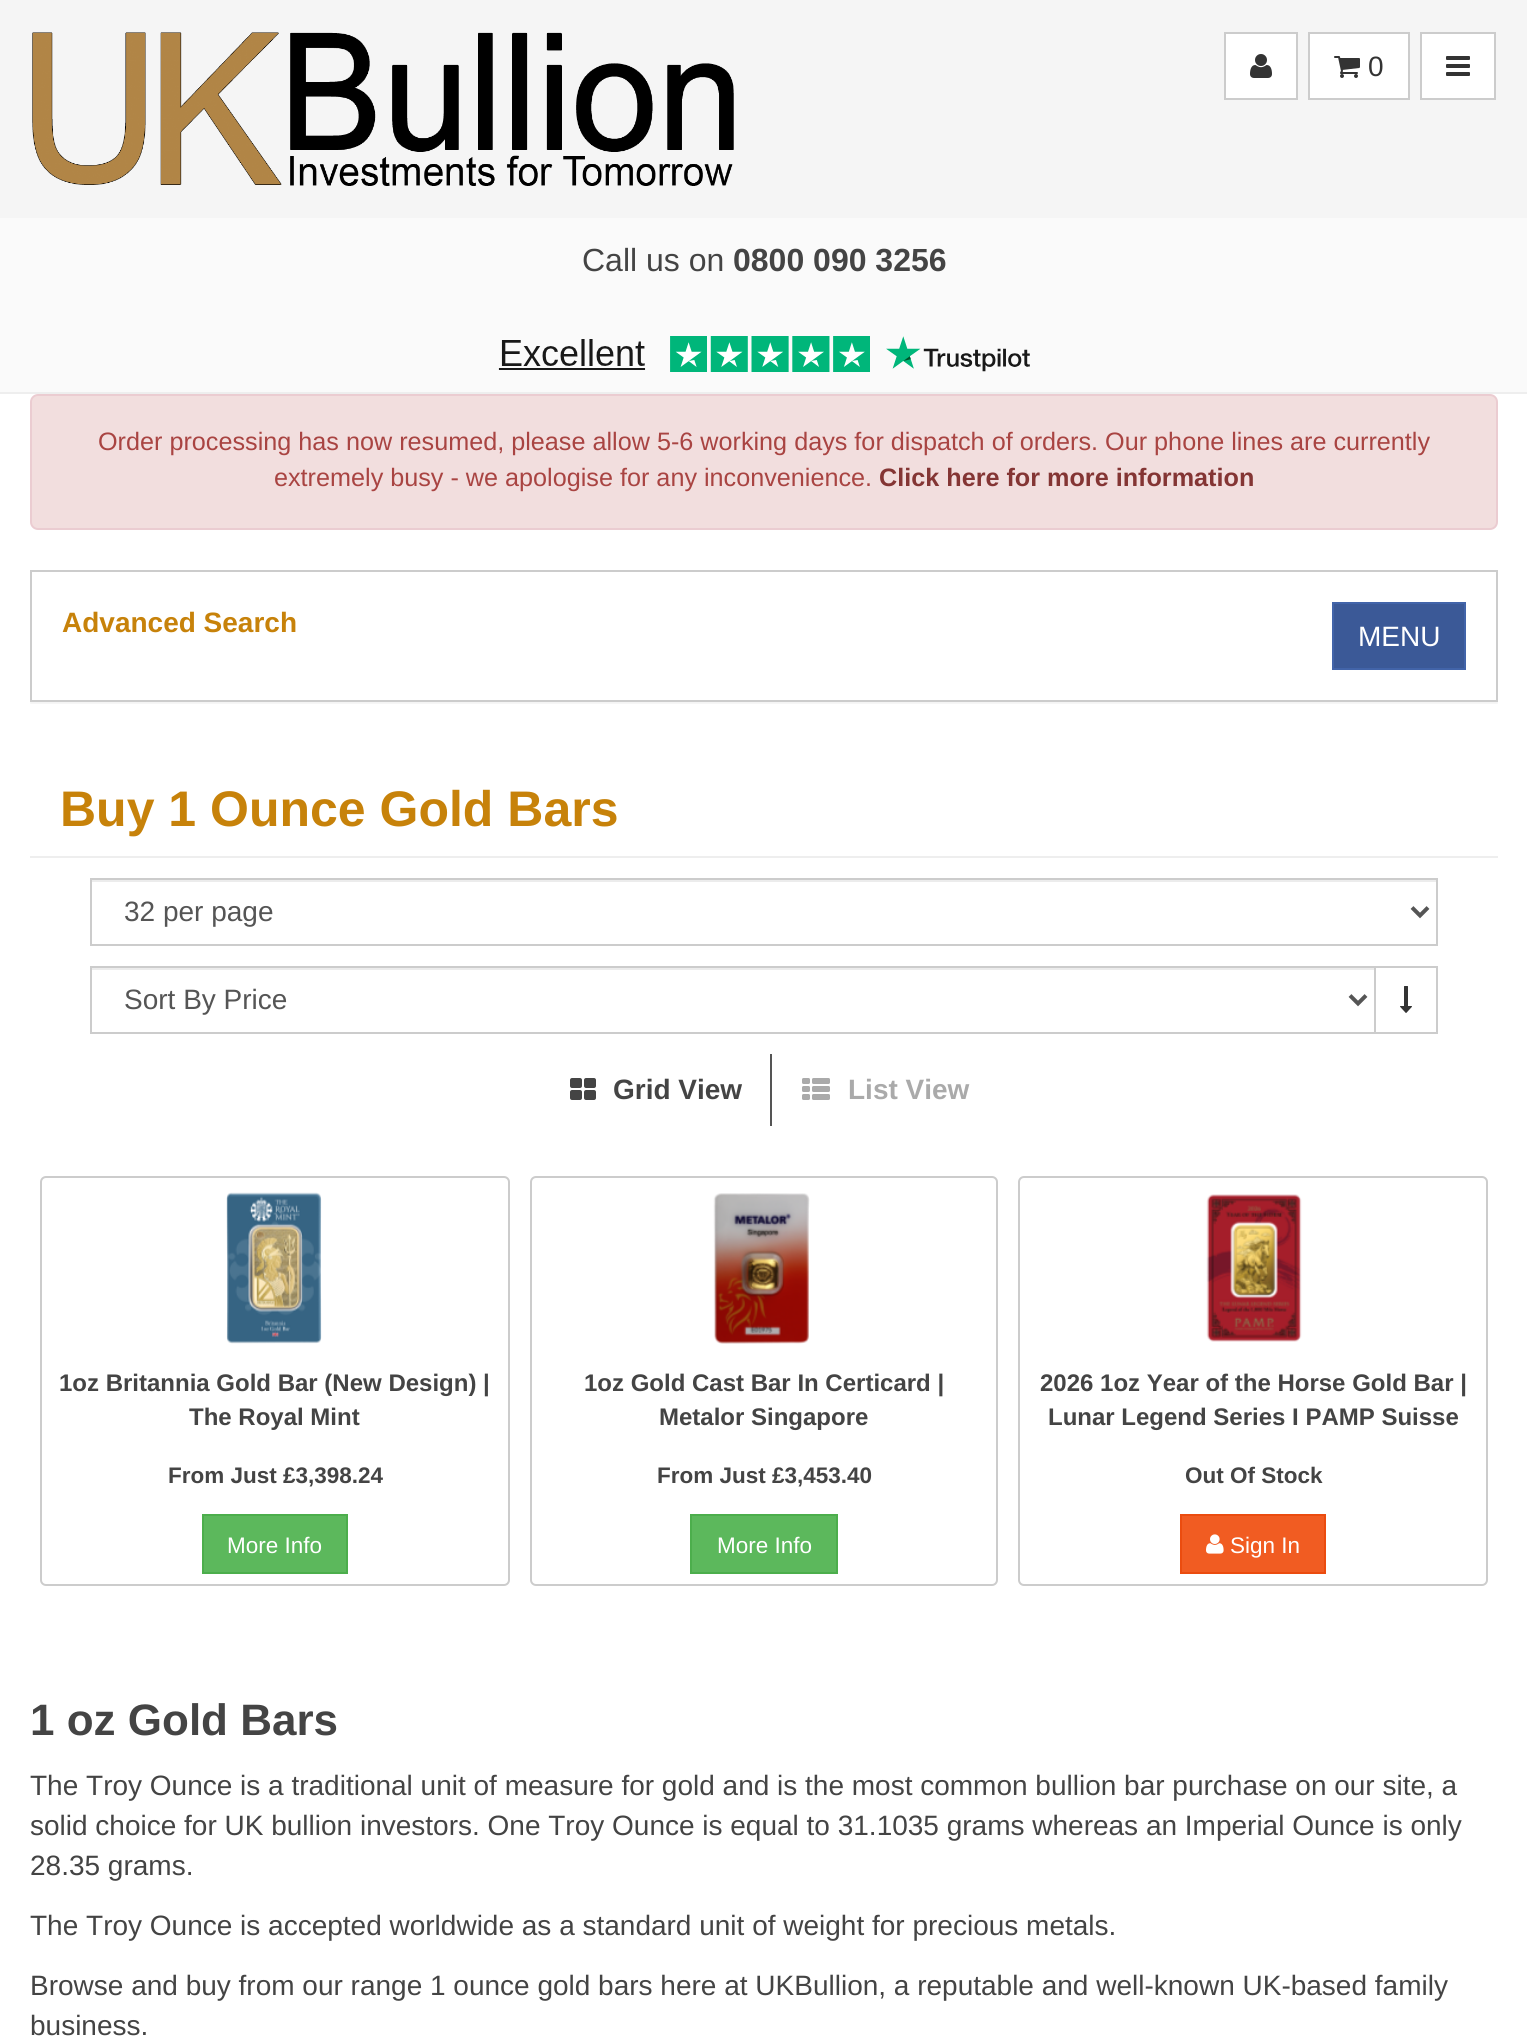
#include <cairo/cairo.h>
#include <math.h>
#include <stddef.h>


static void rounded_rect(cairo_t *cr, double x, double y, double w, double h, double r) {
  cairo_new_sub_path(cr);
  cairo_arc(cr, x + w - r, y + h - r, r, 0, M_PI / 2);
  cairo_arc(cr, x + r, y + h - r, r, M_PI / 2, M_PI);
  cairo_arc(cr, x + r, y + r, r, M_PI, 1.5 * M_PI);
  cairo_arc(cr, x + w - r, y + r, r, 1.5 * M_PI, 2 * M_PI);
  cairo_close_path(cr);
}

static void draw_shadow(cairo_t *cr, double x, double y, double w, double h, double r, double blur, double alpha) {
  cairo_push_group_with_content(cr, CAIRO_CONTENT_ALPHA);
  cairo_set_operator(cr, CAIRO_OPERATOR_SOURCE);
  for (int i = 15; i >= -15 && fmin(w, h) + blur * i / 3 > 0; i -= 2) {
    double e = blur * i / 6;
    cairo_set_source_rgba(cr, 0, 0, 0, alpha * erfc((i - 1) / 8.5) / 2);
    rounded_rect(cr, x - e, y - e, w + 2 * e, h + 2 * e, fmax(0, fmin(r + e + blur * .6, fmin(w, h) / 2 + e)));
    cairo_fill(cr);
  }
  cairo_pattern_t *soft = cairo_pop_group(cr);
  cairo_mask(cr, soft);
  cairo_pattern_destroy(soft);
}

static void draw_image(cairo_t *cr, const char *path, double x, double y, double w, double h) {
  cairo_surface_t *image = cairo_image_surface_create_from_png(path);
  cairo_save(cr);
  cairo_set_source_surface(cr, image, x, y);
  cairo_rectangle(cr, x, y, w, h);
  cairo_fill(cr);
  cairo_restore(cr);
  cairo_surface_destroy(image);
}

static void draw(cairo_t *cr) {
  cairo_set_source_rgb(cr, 1, 1, 1);
  cairo_paint(cr);
  cairo_set_source_rgb(cr, 245 / 255.0, 245 / 255.0, 245 / 255.0);
  cairo_rectangle(cr, 0, 0, 1527, 218);
  cairo_fill(cr);
  draw_image(cr, "images/1.png", 32, 32, 702, 154);
  cairo_set_source_rgb(cr, 1, 1, 1);
  cairo_rectangle(cr, 1225, 33, 72, 66);
  cairo_fill_preserve(cr);
  cairo_set_source_rgb(cr, 204 / 255.0, 204 / 255.0, 204 / 255.0);
  cairo_stroke(cr);
  draw_image(cr, "images/2.png", 1250, 54, 22, 24);
  cairo_set_source_rgb(cr, 1, 1, 1);
  cairo_rectangle(cr, 1309, 33, 100, 66);
  cairo_fill_preserve(cr);
  cairo_set_source_rgb(cr, 204 / 255.0, 204 / 255.0, 204 / 255.0);
  cairo_stroke(cr);
  draw_image(cr, "images/3.png", 1334, 56, 26, 22);
  cairo_set_source_rgb(cr, 1, 1, 1);
  cairo_rectangle(cr, 1421, 33, 74, 66);
  cairo_fill_preserve(cr);
  cairo_set_source_rgb(cr, 204 / 255.0, 204 / 255.0, 204 / 255.0);
  cairo_stroke(cr);
  draw_image(cr, "images/4.png", 1446, 56, 24, 20);
  cairo_set_source_rgb(cr, 250 / 255.0, 250 / 255.0, 250 / 255.0);
  cairo_rectangle(cr, 0, 218, 1527, 174);
  cairo_fill(cr);
  cairo_set_source_rgb(cr, 238 / 255.0, 238 / 255.0, 238 / 255.0);
  cairo_rectangle(cr, 0, 392, 1527, 2);
  cairo_fill(cr);
  draw_image(cr, "images/5.png", 498, 336, 532, 36);
  cairo_set_source_rgb(cr, 242 / 255.0, 222 / 255.0, 222 / 255.0);
  rounded_rect(cr, 31, 395, 1466, 134, 7);
  cairo_fill_preserve(cr);
  cairo_set_source_rgb(cr, 235 / 255.0, 204 / 255.0, 209 / 255.0);
  cairo_stroke(cr);
  cairo_save(cr);
  cairo_rectangle(cr, 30, 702, 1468, 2);
  cairo_clip(cr);
  cairo_set_source_rgb(cr, 0, 0, 0);
  draw_shadow(cr, 30, 572, 1468, 132, 0, 1, 0.05);
  cairo_restore(cr);
  cairo_rectangle(cr, 31, 571, 1466, 130);
  cairo_set_source_rgb(cr, 204 / 255.0, 204 / 255.0, 204 / 255.0);
  cairo_stroke(cr);
  cairo_set_source_rgb(cr, 59 / 255.0, 89 / 255.0, 151 / 255.0);
  cairo_rectangle(cr, 1333, 603, 132, 66);
  cairo_fill_preserve(cr);
  cairo_set_source_rgb(cr, 66 / 255.0, 100 / 255.0, 169 / 255.0);
  cairo_stroke(cr);
  cairo_set_source_rgb(cr, 238 / 255.0, 238 / 255.0, 238 / 255.0);
  cairo_rectangle(cr, 30, 856, 1468, 2);
  cairo_fill(cr);
  cairo_set_source_rgb(cr, 236 / 255.0, 236 / 255.0, 236 / 255.0);
  cairo_rectangle(cr, 92, 880, 1344, 2);
  cairo_fill(cr);
  cairo_rectangle(cr, 91, 879, 1346, 66);
  cairo_set_source_rgb(cr, 204 / 255.0, 204 / 255.0, 204 / 255.0);
  cairo_stroke(cr);
  cairo_new_path(cr);
  cairo_move_to(cr, 1412, 907.5);
  cairo_line_to(cr, 1420, 915.5);
  cairo_line_to(cr, 1428, 907.5);
  cairo_set_source_rgb(cr, 85 / 255.0, 85 / 255.0, 85 / 255.0);
  cairo_set_line_width(cr, 4);
  cairo_stroke(cr);
  cairo_set_source_rgb(cr, 236 / 255.0, 236 / 255.0, 236 / 255.0);
  cairo_rectangle(cr, 92, 968, 1282, 2);
  cairo_fill(cr);
  cairo_rectangle(cr, 1375, 967, 62, 66);
  cairo_set_source_rgb(cr, 204 / 255.0, 204 / 255.0, 204 / 255.0);
  cairo_set_line_width(cr, 2);
  cairo_stroke(cr);
  cairo_rectangle(cr, 91, 967, 1284, 66);
  cairo_stroke(cr);
  cairo_new_path(cr);
  cairo_move_to(cr, 1350, 995.5);
  cairo_line_to(cr, 1358, 1003.5);
  cairo_line_to(cr, 1366, 995.5);
  cairo_set_source_rgb(cr, 85 / 255.0, 85 / 255.0, 85 / 255.0);
  cairo_set_line_width(cr, 4);
  cairo_stroke(cr);
  draw_image(cr, "images/6.png", 1400, 986, 12, 27);
  cairo_rectangle(cr, 770, 1054, 2, 72);
  cairo_fill(cr);
  draw_image(cr, "images/7.png", 570, 1078, 26, 22);
  draw_image(cr, "images/8.png", 802, 1078, 28, 22);
  rounded_rect(cr, 41, 1177, 468, 408, 5);
  cairo_set_source_rgb(cr, 204 / 255.0, 204 / 255.0, 204 / 255.0);
  cairo_set_line_width(cr, 2);
  cairo_stroke(cr);
  draw_image(cr, "images/9.png", 226, 1192, 96, 152);
  cairo_set_source_rgb(cr, 92 / 255.0, 184 / 255.0, 92 / 255.0);
  cairo_rectangle(cr, 203, 1515, 144, 58);
  cairo_fill_preserve(cr);
  cairo_set_source_rgb(cr, 76 / 255.0, 174 / 255.0, 76 / 255.0);
  cairo_stroke(cr);
  rounded_rect(cr, 531, 1177, 466, 408, 5);
  cairo_set_source_rgb(cr, 204 / 255.0, 204 / 255.0, 204 / 255.0);
  cairo_stroke(cr);
  draw_image(cr, "images/10.png", 713, 1193, 97, 151);
  cairo_set_source_rgb(cr, 92 / 255.0, 184 / 255.0, 92 / 255.0);
  cairo_rectangle(cr, 691, 1515, 146, 58);
  cairo_fill_preserve(cr);
  cairo_set_source_rgb(cr, 76 / 255.0, 174 / 255.0, 76 / 255.0);
  cairo_stroke(cr);
  rounded_rect(cr, 1019, 1177, 468, 408, 5);
  cairo_set_source_rgb(cr, 204 / 255.0, 204 / 255.0, 204 / 255.0);
  cairo_stroke(cr);
  draw_image(cr, "images/11.png", 1206, 1194, 96, 148);
  cairo_set_source_rgb(cr, 241 / 255.0, 92 / 255.0, 34 / 255.0);
  cairo_rectangle(cr, 1181, 1515, 144, 58);
  cairo_fill_preserve(cr);
  cairo_set_source_rgb(cr, 235 / 255.0, 76 / 255.0, 15 / 255.0);
  cairo_stroke(cr);
  draw_image(cr, "images/12.png", 1206, 1534, 18, 20);
  cairo_select_font_face(cr, "Liberation Sans", CAIRO_FONT_SLANT_NORMAL, CAIRO_FONT_WEIGHT_NORMAL);
  cairo_set_font_size(cr, 28);
  cairo_set_source_rgb(cr, 51 / 255.0, 51 / 255.0, 51 / 255.0);
  cairo_move_to(cr, 1368, 76);
  cairo_show_text(cr, "0");
  cairo_set_font_size(cr, 32);
  cairo_set_source_rgb(cr, 68 / 255.0, 68 / 255.0, 68 / 255.0);
  cairo_move_to(cr, 582, 271);
  cairo_show_text(cr, "Call us on");
  cairo_select_font_face(cr, "Liberation Sans", CAIRO_FONT_SLANT_NORMAL, CAIRO_FONT_WEIGHT_BOLD);
  cairo_move_to(cr, 733, 271);
  cairo_show_text(cr, "0800 090 3256");
  cairo_select_font_face(cr, "Liberation Sans", CAIRO_FONT_SLANT_NORMAL, CAIRO_FONT_WEIGHT_NORMAL);
  cairo_set_font_size(cr, 25.2);
  cairo_set_source_rgb(cr, 169 / 255.0, 68 / 255.0, 66 / 255.0);
  cairo_move_to(cr, 98, 450);
  cairo_show_text(cr, "Order processing has now resumed, please allow 5-6 working days for dispatch of orders. Our phone lines are currently");
  cairo_move_to(cr, 274, 486);
  cairo_show_text(cr, "extremely busy - we apologise for any inconvenience.");
  cairo_select_font_face(cr, "Liberation Sans", CAIRO_FONT_SLANT_NORMAL, CAIRO_FONT_WEIGHT_BOLD);
  cairo_set_source_rgb(cr, 132 / 255.0, 53 / 255.0, 52 / 255.0);
  cairo_move_to(cr, 879, 486);
  cairo_show_text(cr, "Click here for more information");
  cairo_set_font_size(cr, 28);
  cairo_set_source_rgb(cr, 199 / 255.0, 130 / 255.0, 10 / 255.0);
  cairo_move_to(cr, 62, 632);
  cairo_show_text(cr, "Advanced Search");
  cairo_select_font_face(cr, "Liberation Sans", CAIRO_FONT_SLANT_NORMAL, CAIRO_FONT_WEIGHT_NORMAL);
  cairo_set_source_rgb(cr, 1, 1, 1);
  cairo_move_to(cr, 1358, 646);
  cairo_show_text(cr, "MENU");
  cairo_select_font_face(cr, "Liberation Sans", CAIRO_FONT_SLANT_NORMAL, CAIRO_FONT_WEIGHT_BOLD);
  cairo_set_font_size(cr, 50);
  cairo_set_source_rgb(cr, 199 / 255.0, 130 / 255.0, 10 / 255.0);
  cairo_move_to(cr, 60, 826);
  cairo_show_text(cr, "Buy 1 Ounce Gold Bars");
  cairo_select_font_face(cr, "Liberation Sans", CAIRO_FONT_SLANT_NORMAL, CAIRO_FONT_WEIGHT_NORMAL);
  cairo_set_font_size(cr, 28);
  cairo_set_source_rgb(cr, 85 / 255.0, 85 / 255.0, 85 / 255.0);
  cairo_move_to(cr, 124, 921);
  cairo_show_text(cr, "32 per page");
  cairo_move_to(cr, 124, 1009);
  cairo_show_text(cr, "Sort By Price");
  cairo_select_font_face(cr, "Liberation Sans", CAIRO_FONT_SLANT_NORMAL, CAIRO_FONT_WEIGHT_BOLD);
  cairo_set_source_rgb(cr, 68 / 255.0, 68 / 255.0, 68 / 255.0);
  cairo_move_to(cr, 613, 1099);
  cairo_show_text(cr, "Grid View");
  cairo_set_source_rgb(cr, 170 / 255.0, 170 / 255.0, 170 / 255.0);
  cairo_move_to(cr, 848, 1099);
  cairo_show_text(cr, "List View");
  cairo_set_font_size(cr, 24);
  cairo_set_source_rgb(cr, 68 / 255.0, 68 / 255.0, 68 / 255.0);
  cairo_move_to(cr, 59, 1391);
  cairo_show_text(cr, "1oz Britannia Gold Bar (New Design) |");
  cairo_move_to(cr, 189, 1425);
  cairo_show_text(cr, "The Royal Mint");
  cairo_set_font_size(cr, 22.5);
  cairo_move_to(cr, 168, 1483);
  cairo_show_text(cr, "From Just £3,398.24");
  cairo_select_font_face(cr, "Liberation Sans", CAIRO_FONT_SLANT_NORMAL, CAIRO_FONT_WEIGHT_NORMAL);
  cairo_set_source_rgb(cr, 1, 1, 1);
  cairo_move_to(cr, 227, 1553);
  cairo_show_text(cr, "More Info");
  cairo_select_font_face(cr, "Liberation Sans", CAIRO_FONT_SLANT_NORMAL, CAIRO_FONT_WEIGHT_BOLD);
  cairo_set_font_size(cr, 24);
  cairo_set_source_rgb(cr, 68 / 255.0, 68 / 255.0, 68 / 255.0);
  cairo_move_to(cr, 584, 1391);
  cairo_show_text(cr, "1oz Gold Cast Bar In Certicard |");
  cairo_move_to(cr, 659, 1425);
  cairo_show_text(cr, "Metalor Singapore");
  cairo_set_font_size(cr, 22.5);
  cairo_move_to(cr, 657, 1483);
  cairo_show_text(cr, "From Just £3,453.40");
  cairo_select_font_face(cr, "Liberation Sans", CAIRO_FONT_SLANT_NORMAL, CAIRO_FONT_WEIGHT_NORMAL);
  cairo_set_source_rgb(cr, 1, 1, 1);
  cairo_move_to(cr, 717, 1553);
  cairo_show_text(cr, "More Info");
  cairo_select_font_face(cr, "Liberation Sans", CAIRO_FONT_SLANT_NORMAL, CAIRO_FONT_WEIGHT_BOLD);
  cairo_set_font_size(cr, 24);
  cairo_set_source_rgb(cr, 68 / 255.0, 68 / 255.0, 68 / 255.0);
  cairo_move_to(cr, 1040, 1391);
  cairo_show_text(cr, "2026 1oz Year of the Horse Gold Bar |");
  cairo_move_to(cr, 1048, 1425);
  cairo_show_text(cr, "Lunar Legend Series I PAMP Suisse");
  cairo_set_font_size(cr, 22.5);
  cairo_move_to(cr, 1185, 1483);
  cairo_show_text(cr, "Out Of Stock");
  cairo_select_font_face(cr, "Liberation Sans", CAIRO_FONT_SLANT_NORMAL, CAIRO_FONT_WEIGHT_NORMAL);
  cairo_set_source_rgb(cr, 1, 1, 1);
  cairo_move_to(cr, 1230, 1553);
  cairo_show_text(cr, "Sign In");
  cairo_select_font_face(cr, "Liberation Sans", CAIRO_FONT_SLANT_NORMAL, CAIRO_FONT_WEIGHT_BOLD);
  cairo_set_font_size(cr, 44);
  cairo_set_source_rgb(cr, 68 / 255.0, 68 / 255.0, 68 / 255.0);
  cairo_move_to(cr, 30, 1735);
  cairo_show_text(cr, "1 oz Gold Bars");
  cairo_select_font_face(cr, "Liberation Sans", CAIRO_FONT_SLANT_NORMAL, CAIRO_FONT_WEIGHT_NORMAL);
  cairo_set_font_size(cr, 28);
  cairo_move_to(cr, 30, 1795);
  cairo_show_text(cr, "The Troy Ounce is a traditional unit of measure for gold and is the most common bullion bar purchase on our site, a");
  cairo_move_to(cr, 30, 1835);
  cairo_show_text(cr, "solid choice for UK bullion investors. One Troy Ounce is equal to 31.1035 grams whereas an Imperial Ounce is only");
  cairo_move_to(cr, 30, 1875);
  cairo_show_text(cr, "28.35 grams.");
  cairo_move_to(cr, 30, 1935);
  cairo_show_text(cr, "The Troy Ounce is accepted worldwide as a standard unit of weight for precious metals.");
  cairo_move_to(cr, 30, 1995);
  cairo_show_text(cr, "Browse and buy from our range 1 ounce gold bars here at UKBullion, a reputable and well-known UK-based family");
  cairo_move_to(cr, 30, 2035);
  cairo_show_text(cr, "business.");
}

int main(void) {
  cairo_surface_t *surface = cairo_image_surface_create(CAIRO_FORMAT_RGB24, 1527, 2042);
  cairo_t *cr = cairo_create(surface);
  cairo_font_options_t *options = cairo_font_options_create();
  cairo_font_options_set_hint_metrics(options, CAIRO_HINT_METRICS_OFF);
  cairo_font_options_set_hint_style(options, CAIRO_HINT_STYLE_NONE);
  cairo_set_font_options(cr, options);
  cairo_set_miter_limit(cr, 4);
  draw(cr);
  cairo_surface_write_to_png(surface, "out.png");
  cairo_font_options_destroy(options);
  cairo_destroy(cr);
  cairo_surface_destroy(surface);
  return 0;
}
